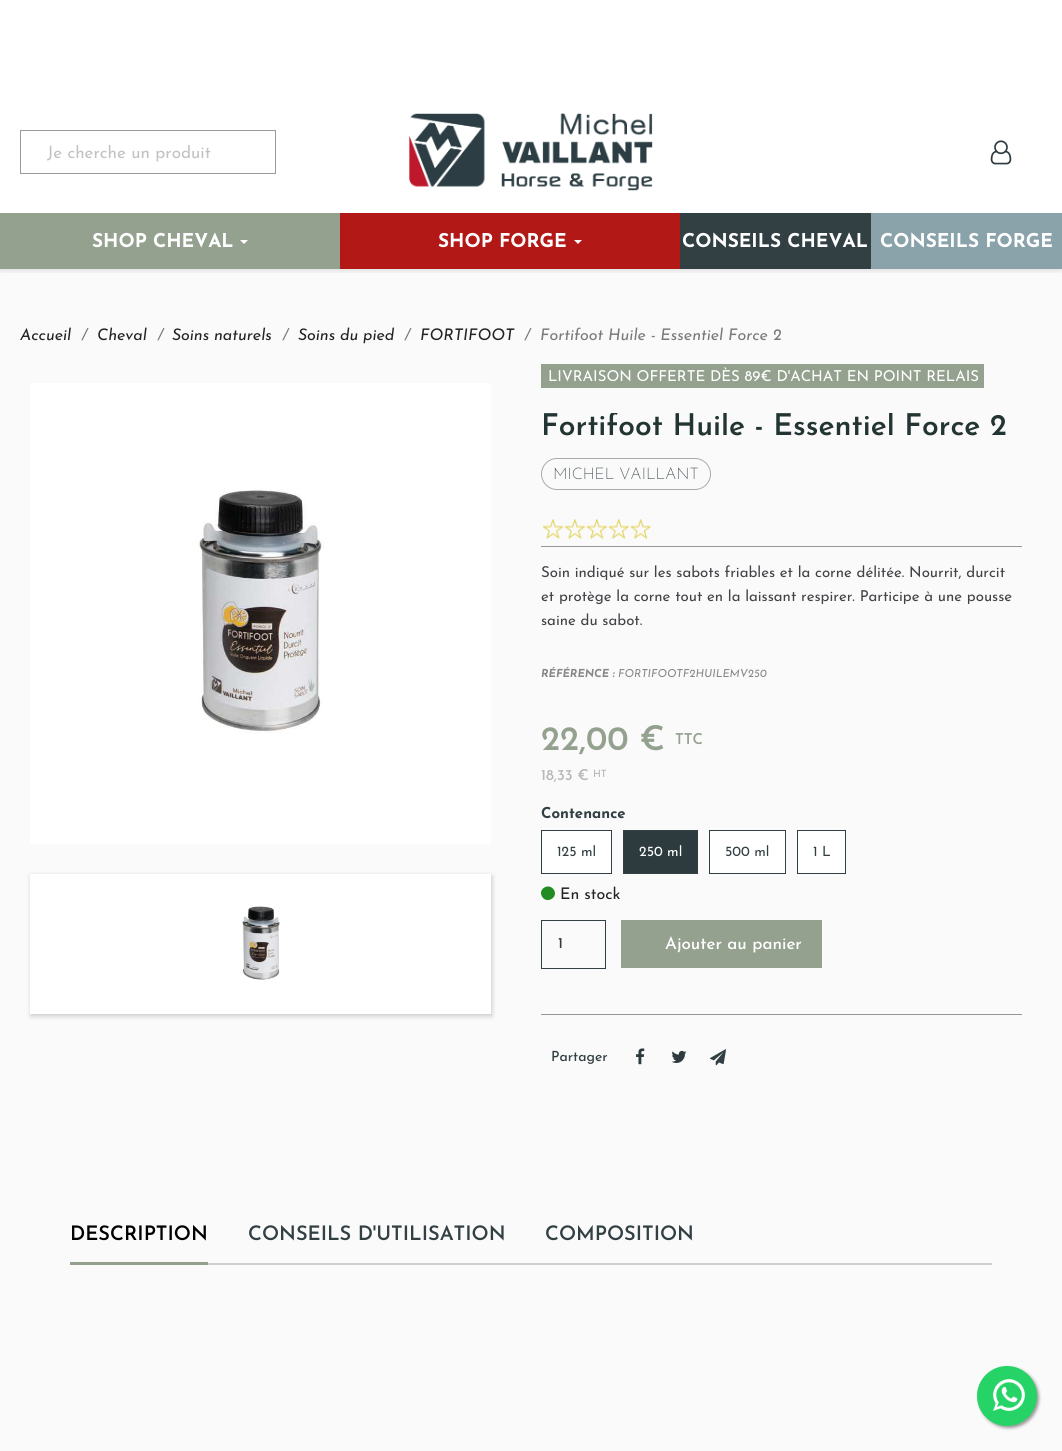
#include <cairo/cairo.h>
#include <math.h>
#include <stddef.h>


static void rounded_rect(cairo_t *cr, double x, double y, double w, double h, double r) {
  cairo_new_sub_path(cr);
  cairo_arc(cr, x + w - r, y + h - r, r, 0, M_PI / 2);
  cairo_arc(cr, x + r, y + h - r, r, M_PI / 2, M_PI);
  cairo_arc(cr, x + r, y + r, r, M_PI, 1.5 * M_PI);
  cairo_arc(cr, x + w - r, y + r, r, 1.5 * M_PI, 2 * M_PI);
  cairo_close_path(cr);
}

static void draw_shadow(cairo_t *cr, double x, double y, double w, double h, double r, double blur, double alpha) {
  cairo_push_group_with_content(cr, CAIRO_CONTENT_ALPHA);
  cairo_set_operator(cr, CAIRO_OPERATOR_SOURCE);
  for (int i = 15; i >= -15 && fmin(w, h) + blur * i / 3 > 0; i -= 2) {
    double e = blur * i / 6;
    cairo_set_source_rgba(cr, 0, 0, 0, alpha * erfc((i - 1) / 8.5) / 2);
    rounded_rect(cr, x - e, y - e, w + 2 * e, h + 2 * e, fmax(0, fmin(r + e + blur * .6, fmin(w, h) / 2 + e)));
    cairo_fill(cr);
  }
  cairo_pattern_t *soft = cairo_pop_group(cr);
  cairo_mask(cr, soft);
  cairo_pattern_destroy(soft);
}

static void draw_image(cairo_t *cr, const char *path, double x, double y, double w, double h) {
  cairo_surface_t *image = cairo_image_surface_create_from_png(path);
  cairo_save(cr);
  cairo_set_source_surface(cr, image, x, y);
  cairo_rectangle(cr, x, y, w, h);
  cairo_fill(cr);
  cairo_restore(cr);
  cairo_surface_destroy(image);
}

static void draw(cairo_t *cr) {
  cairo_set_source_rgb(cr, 1, 1, 1);
  cairo_paint(cr);
  cairo_set_source_rgb(cr, 250 / 255.0, 250 / 255.0, 250 / 255.0);
  cairo_rectangle(cr, 0, 269, 1062, 1182);
  cairo_fill(cr);
  cairo_save(cr);
  cairo_rectangle(cr, 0, 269, 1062, 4);
  cairo_clip(cr);
  cairo_set_source_rgb(cr, 0, 0, 0);
  draw_shadow(cr, 0, 2, 1062, 269, 0, 2.5, 0.11);
  cairo_restore(cr);
  cairo_rectangle(cr, 20.5, 130.5, 255, 43);
  cairo_set_source_rgb(cr, 153 / 255.0, 153 / 255.0, 153 / 255.0);
  cairo_set_line_width(cr, 1);
  cairo_stroke(cr);
  draw_image(cr, "images/1.png", 409, 113, 244, 78);
  draw_image(cr, "images/2.png", 990, 140, 22, 25);
  cairo_set_source_rgb(cr, 149 / 255.0, 161 / 255.0, 143 / 255.0);
  cairo_rectangle(cr, 0, 213, 340, 56);
  cairo_fill(cr);
  cairo_set_source_rgb(cr, 1, 1, 1);
  cairo_new_path(cr);
  cairo_move_to(cr, 240, 240);
  cairo_line_to(cr, 248, 240);
  cairo_line_to(cr, 244, 244);
  cairo_close_path(cr);
  cairo_fill(cr);
  cairo_set_source_rgb(cr, 178 / 255.0, 24 / 255.0, 22 / 255.0);
  cairo_rectangle(cr, 340, 213, 340, 56);
  cairo_fill(cr);
  cairo_set_source_rgb(cr, 1, 1, 1);
  cairo_new_path(cr);
  cairo_move_to(cr, 574, 240);
  cairo_line_to(cr, 582, 240);
  cairo_line_to(cr, 578, 244);
  cairo_close_path(cr);
  cairo_fill(cr);
  cairo_set_source_rgb(cr, 50 / 255.0, 64 / 255.0, 68 / 255.0);
  cairo_rectangle(cr, 680, 213, 191, 56);
  cairo_fill(cr);
  cairo_set_source_rgb(cr, 138 / 255.0, 162 / 255.0, 170 / 255.0);
  cairo_rectangle(cr, 871, 213, 191, 56);
  cairo_fill(cr);
  draw_image(cr, "images/3.png", 30, 383, 461, 461);
  cairo_set_source_rgb(cr, 0, 0, 0);
  draw_shadow(cr, 31, 876, 461, 140, 0, 2.5, 0.2);
  cairo_set_source_rgb(cr, 1, 1, 1);
  cairo_rectangle(cr, 30, 874, 461, 140);
  cairo_fill(cr);
  draw_image(cr, "images/4.png", 242, 906, 38, 74);
  cairo_set_source_rgb(cr, 149 / 255.0, 161 / 255.0, 143 / 255.0);
  cairo_rectangle(cr, 541, 364, 443, 24);
  cairo_fill(cr);
  rounded_rect(cr, 541.5, 458.5, 169, 31, 15.5);
  cairo_set_source_rgb(cr, 170 / 255.0, 170 / 255.0, 170 / 255.0);
  cairo_stroke(cr);
  draw_image(cr, "images/5.png", 542, 519, 22, 20);
  draw_image(cr, "images/6.png", 564, 519, 22, 20);
  draw_image(cr, "images/7.png", 586, 519, 22, 20);
  draw_image(cr, "images/8.png", 608, 519, 22, 20);
  draw_image(cr, "images/9.png", 630, 519, 21, 20);
  cairo_set_source_rgb(cr, 150 / 255.0, 150 / 255.0, 150 / 255.0);
  cairo_rectangle(cr, 541, 546, 481, 1);
  cairo_fill(cr);
  cairo_set_source_rgb(cr, 1, 1, 1);
  cairo_rectangle(cr, 541.5, 830.5, 70, 43);
  cairo_fill_preserve(cr);
  cairo_set_source_rgb(cr, 50 / 255.0, 64 / 255.0, 68 / 255.0);
  cairo_stroke(cr);
  cairo_set_source_rgb(cr, 45 / 255.0, 59 / 255.0, 63 / 255.0);
  cairo_rectangle(cr, 623.5, 830.5, 74, 43);
  cairo_fill_preserve(cr);
  cairo_set_source_rgb(cr, 50 / 255.0, 64 / 255.0, 68 / 255.0);
  cairo_stroke(cr);
  cairo_set_source_rgb(cr, 1, 1, 1);
  cairo_rectangle(cr, 709.5, 830.5, 76, 43);
  cairo_fill_preserve(cr);
  cairo_set_source_rgb(cr, 50 / 255.0, 64 / 255.0, 68 / 255.0);
  cairo_stroke(cr);
  cairo_set_source_rgb(cr, 1, 1, 1);
  cairo_rectangle(cr, 797.5, 830.5, 48, 43);
  cairo_fill_preserve(cr);
  cairo_set_source_rgb(cr, 50 / 255.0, 64 / 255.0, 68 / 255.0);
  cairo_stroke(cr);
  cairo_set_source_rgb(cr, 34 / 255.0, 139 / 255.0, 34 / 255.0);
  cairo_new_path(cr);
  cairo_move_to(cr, 554, 890);
  cairo_curve_to(cr, 558.5, 897.5, 546.5, 904.5, 542, 896.5);
  cairo_curve_to(cr, 537.5, 889, 549, 882, 554, 890);
  cairo_close_path(cr);
  cairo_fill(cr);
  cairo_rectangle(cr, 541.5, 920.5, 64, 48);
  cairo_set_source_rgb(cr, 50 / 255.0, 64 / 255.0, 68 / 255.0);
  cairo_stroke(cr);
  cairo_set_source_rgb(cr, 149 / 255.0, 161 / 255.0, 143 / 255.0);
  cairo_rectangle(cr, 621, 920, 201, 48);
  cairo_fill(cr);
  cairo_set_source_rgb(cr, 150 / 255.0, 150 / 255.0, 150 / 255.0);
  cairo_rectangle(cr, 541, 1014, 481, 1);
  cairo_fill(cr);
  draw_image(cr, "images/10.png", 636, 1048, 9, 17);
  draw_image(cr, "images/11.png", 671, 1050, 16, 13);
  draw_image(cr, "images/12.png", 710, 1049, 16, 17);
  cairo_set_source_rgb(cr, 208 / 255.0, 208 / 255.0, 208 / 255.0);
  cairo_rectangle(cr, 208, 1263, 784, 2);
  cairo_fill(cr);
  cairo_set_source_rgb(cr, 149 / 255.0, 161 / 255.0, 143 / 255.0);
  cairo_rectangle(cr, 70, 1262, 138, 3);
  cairo_fill(cr);
  cairo_set_source_rgb(cr, 153 / 255.0, 153 / 255.0, 153 / 255.0);
  draw_shadow(cr, 979, 1368, 60, 60, 30, 1.5, 1);
  cairo_set_source_rgb(cr, 37 / 255.0, 211 / 255.0, 102 / 255.0);
  cairo_arc(cr, 1007, 1396, 30, 0, 2 * M_PI);
  cairo_fill(cr);
  draw_image(cr, "images/13.png", 993, 1379, 32, 32);
  cairo_save(cr);
  cairo_rectangle(cr, 47, 145, 197, 17);
  cairo_clip(cr);
  cairo_select_font_face(cr, "Josefin Sans", CAIRO_FONT_SLANT_NORMAL, CAIRO_FONT_WEIGHT_NORMAL);
  cairo_set_font_size(cr, 17);
  cairo_set_source_rgb(cr, 194 / 255.0, 194 / 255.0, 194 / 255.0);
  cairo_move_to(cr, 47, 158);
  cairo_show_text(cr, "Je cherche un produit");
  cairo_restore(cr);
  cairo_select_font_face(cr, "Josefin Sans", CAIRO_FONT_SLANT_NORMAL, CAIRO_FONT_WEIGHT_BOLD);
  cairo_set_font_size(cr, 19);
  cairo_set_source_rgb(cr, 1, 1, 1);
  cairo_move_to(cr, 92, 247);
  cairo_show_text(cr, "SHOP CHEVAL");
  cairo_move_to(cr, 438, 247);
  cairo_show_text(cr, "SHOP FORGE");
  cairo_move_to(cr, 682, 247);
  cairo_show_text(cr, "CONSEILS CHEVAL");
  cairo_move_to(cr, 880, 247);
  cairo_show_text(cr, "CONSEILS FORGE");
  cairo_select_font_face(cr, "Josefin Sans", CAIRO_FONT_SLANT_ITALIC, CAIRO_FONT_WEIGHT_NORMAL);
  cairo_set_font_size(cr, 16);
  cairo_set_source_rgb(cr, 35 / 255.0, 35 / 255.0, 35 / 255.0);
  cairo_move_to(cr, 20, 340);
  cairo_show_text(cr, "Accueil");
  cairo_set_source_rgb(cr, 122 / 255.0, 122 / 255.0, 122 / 255.0);
  cairo_move_to(cr, 81, 340);
  cairo_show_text(cr, "/");
  cairo_set_source_rgb(cr, 35 / 255.0, 35 / 255.0, 35 / 255.0);
  cairo_move_to(cr, 97, 340);
  cairo_show_text(cr, "Cheval");
  cairo_set_source_rgb(cr, 122 / 255.0, 122 / 255.0, 122 / 255.0);
  cairo_move_to(cr, 157, 340);
  cairo_show_text(cr, "/");
  cairo_set_source_rgb(cr, 35 / 255.0, 35 / 255.0, 35 / 255.0);
  cairo_move_to(cr, 172, 340);
  cairo_show_text(cr, "Soins naturels");
  cairo_set_source_rgb(cr, 122 / 255.0, 122 / 255.0, 122 / 255.0);
  cairo_move_to(cr, 282, 340);
  cairo_show_text(cr, "/");
  cairo_set_source_rgb(cr, 35 / 255.0, 35 / 255.0, 35 / 255.0);
  cairo_move_to(cr, 298, 340);
  cairo_show_text(cr, "Soins du pied");
  cairo_set_source_rgb(cr, 122 / 255.0, 122 / 255.0, 122 / 255.0);
  cairo_move_to(cr, 404, 340);
  cairo_show_text(cr, "/");
  cairo_set_source_rgb(cr, 35 / 255.0, 35 / 255.0, 35 / 255.0);
  cairo_move_to(cr, 420, 340);
  cairo_show_text(cr, "FORTIFOOT");
  cairo_set_source_rgb(cr, 122 / 255.0, 122 / 255.0, 122 / 255.0);
  cairo_move_to(cr, 524, 340);
  cairo_show_text(cr, "/");
  cairo_move_to(cr, 540, 340);
  cairo_show_text(cr, "Fortifoot Huile - Essentiel Force 2");
  cairo_select_font_face(cr, "Josefin Sans", CAIRO_FONT_SLANT_NORMAL, CAIRO_FONT_WEIGHT_NORMAL);
  cairo_set_font_size(cr, 15);
  cairo_set_source_rgb(cr, 1, 1, 1);
  cairo_move_to(cr, 548, 381);
  cairo_show_text(cr, "LIVRAISON OFFERTE DÈS 89€ D'ACHAT EN POINT RELAIS");
  cairo_save(cr);
  cairo_rectangle(cr, 541, 413, 481, 30);
  cairo_clip(cr);
  cairo_select_font_face(cr, "Josefin Sans SemiBold", CAIRO_FONT_SLANT_NORMAL, CAIRO_FONT_WEIGHT_NORMAL);
  cairo_set_font_size(cr, 30);
  cairo_set_source_rgb(cr, 34 / 255.0, 53 / 255.0, 50 / 255.0);
  cairo_move_to(cr, 541, 435);
  cairo_show_text(cr, "Fortifoot Huile - Essentiel Force 2");
  cairo_restore(cr);
  cairo_select_font_face(cr, "Josefin Sans ExtraLight", CAIRO_FONT_SLANT_NORMAL, CAIRO_FONT_WEIGHT_NORMAL);
  cairo_set_font_size(cr, 16);
  cairo_set_source_rgb(cr, 50 / 255.0, 64 / 255.0, 68 / 255.0);
  cairo_move_to(cr, 553, 479);
  cairo_show_text(cr, "MICHEL VAILLANT");
  cairo_select_font_face(cr, "Josefin Sans", CAIRO_FONT_SLANT_NORMAL, CAIRO_FONT_WEIGHT_NORMAL);
  cairo_set_font_size(cr, 15);
  cairo_set_source_rgb(cr, 67 / 255.0, 67 / 255.0, 71 / 255.0);
  cairo_move_to(cr, 541, 577);
  cairo_show_text(cr, "Soin indiqué sur les sabots friables et la corne délitée. Nourrit, durcit");
  cairo_move_to(cr, 541, 601);
  cairo_show_text(cr, "et protège la corne tout en la laissant respirer. Participe à une pousse");
  cairo_move_to(cr, 541, 625);
  cairo_show_text(cr, "saine du sabot.");
  cairo_select_font_face(cr, "Josefin Sans", CAIRO_FONT_SLANT_ITALIC, CAIRO_FONT_WEIGHT_BOLD);
  cairo_set_font_size(cr, 11);
  cairo_set_source_rgb(cr, 135 / 255.0, 135 / 255.0, 135 / 255.0);
  cairo_move_to(cr, 541, 677);
  cairo_show_text(cr, "RÉFÉRENCE :");
  cairo_select_font_face(cr, "Josefin Sans", CAIRO_FONT_SLANT_ITALIC, CAIRO_FONT_WEIGHT_NORMAL);
  cairo_move_to(cr, 618, 677);
  cairo_show_text(cr, "FORTIFOOTF2HUILEMV250");
  cairo_select_font_face(cr, "Josefin Sans SemiBold", CAIRO_FONT_SLANT_NORMAL, CAIRO_FONT_WEIGHT_NORMAL);
  cairo_set_font_size(cr, 34);
  cairo_set_source_rgb(cr, 149 / 255.0, 161 / 255.0, 143 / 255.0);
  cairo_move_to(cr, 541, 750);
  cairo_show_text(cr, "22,00 €");
  cairo_set_font_size(cr, 15);
  cairo_move_to(cr, 675, 744);
  cairo_show_text(cr, "TTC");
  cairo_select_font_face(cr, "Josefin Sans Medium", CAIRO_FONT_SLANT_NORMAL, CAIRO_FONT_WEIGHT_NORMAL);
  cairo_set_source_rgb(cr, 183 / 255.0, 183 / 255.0, 183 / 255.0);
  cairo_move_to(cr, 541, 780);
  cairo_show_text(cr, "18,33 €");
  cairo_set_font_size(cr, 10);
  cairo_move_to(cr, 593, 777);
  cairo_show_text(cr, "HT");
  cairo_select_font_face(cr, "Josefin Sans", CAIRO_FONT_SLANT_NORMAL, CAIRO_FONT_WEIGHT_BOLD);
  cairo_set_font_size(cr, 15);
  cairo_set_source_rgb(cr, 50 / 255.0, 64 / 255.0, 68 / 255.0);
  cairo_move_to(cr, 541, 818);
  cairo_show_text(cr, "Contenance");
  cairo_select_font_face(cr, "Josefin Sans", CAIRO_FONT_SLANT_NORMAL, CAIRO_FONT_WEIGHT_NORMAL);
  cairo_set_font_size(cr, 14);
  cairo_move_to(cr, 557, 856);
  cairo_show_text(cr, "125 ml");
  cairo_set_source_rgb(cr, 1, 1, 1);
  cairo_move_to(cr, 639, 856);
  cairo_show_text(cr, "250 ml");
  cairo_set_source_rgb(cr, 50 / 255.0, 64 / 255.0, 68 / 255.0);
  cairo_move_to(cr, 725, 856);
  cairo_show_text(cr, "500 ml");
  cairo_move_to(cr, 813, 856);
  cairo_show_text(cr, "1 L");
  cairo_set_font_size(cr, 16);
  cairo_set_source_rgb(cr, 35 / 255.0, 35 / 255.0, 35 / 255.0);
  cairo_move_to(cr, 560, 899);
  cairo_show_text(cr, "En stock");
  cairo_select_font_face(cr, "Josefin Sans Medium", CAIRO_FONT_SLANT_NORMAL, CAIRO_FONT_WEIGHT_NORMAL);
  cairo_set_font_size(cr, 15);
  cairo_set_source_rgb(cr, 55 / 255.0, 58 / 255.0, 60 / 255.0);
  cairo_move_to(cr, 558, 948);
  cairo_show_text(cr, "1");
  cairo_set_font_size(cr, 17);
  cairo_set_source_rgb(cr, 1, 1, 1);
  cairo_move_to(cr, 665, 949);
  cairo_show_text(cr, "Ajouter au panier");
  cairo_set_font_size(cr, 14);
  cairo_set_source_rgb(cr, 50 / 255.0, 64 / 255.0, 68 / 255.0);
  cairo_move_to(cr, 551, 1061);
  cairo_show_text(cr, "Partager");
  cairo_select_font_face(cr, "Josefin Sans SemiBold", CAIRO_FONT_SLANT_NORMAL, CAIRO_FONT_WEIGHT_NORMAL);
  cairo_set_font_size(cr, 20);
  cairo_set_source_rgb(cr, 0, 0, 0);
  cairo_move_to(cr, 70, 1240);
  cairo_show_text(cr, "DESCRIPTION");
  cairo_set_source_rgb(cr, 50 / 255.0, 64 / 255.0, 68 / 255.0);
  cairo_move_to(cr, 248, 1240);
  cairo_show_text(cr, "CONSEILS D'UTILISATION");
  cairo_move_to(cr, 545, 1240);
  cairo_show_text(cr, "COMPOSITION");
}

int main(void) {
  cairo_surface_t *surface = cairo_image_surface_create(CAIRO_FORMAT_RGB24, 1062, 1451);
  cairo_t *cr = cairo_create(surface);
  cairo_font_options_t *options = cairo_font_options_create();
  cairo_font_options_set_hint_metrics(options, CAIRO_HINT_METRICS_OFF);
  cairo_font_options_set_hint_style(options, CAIRO_HINT_STYLE_NONE);
  cairo_set_font_options(cr, options);
  cairo_set_miter_limit(cr, 4);
  draw(cr);
  cairo_surface_write_to_png(surface, "out.png");
  cairo_font_options_destroy(options);
  cairo_destroy(cr);
  cairo_surface_destroy(surface);
  return 0;
}
